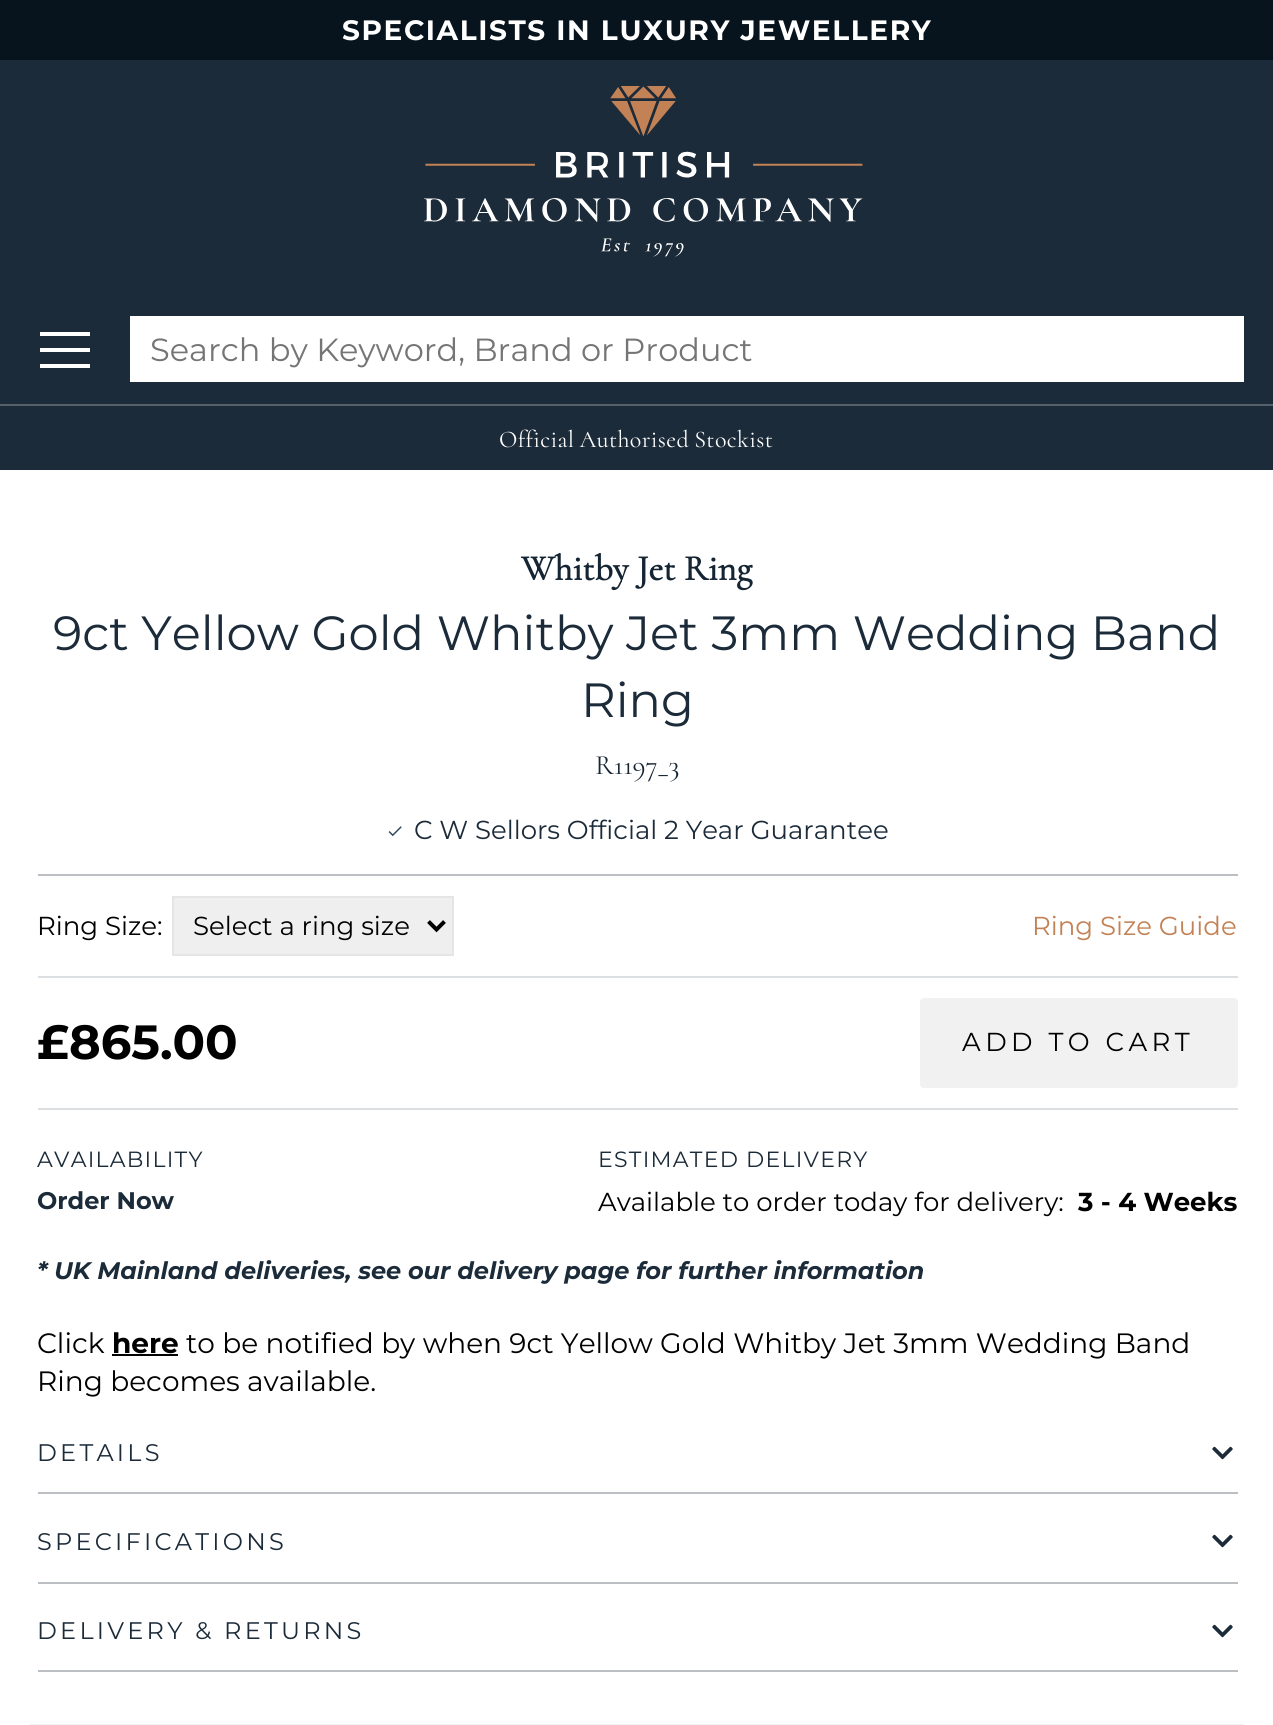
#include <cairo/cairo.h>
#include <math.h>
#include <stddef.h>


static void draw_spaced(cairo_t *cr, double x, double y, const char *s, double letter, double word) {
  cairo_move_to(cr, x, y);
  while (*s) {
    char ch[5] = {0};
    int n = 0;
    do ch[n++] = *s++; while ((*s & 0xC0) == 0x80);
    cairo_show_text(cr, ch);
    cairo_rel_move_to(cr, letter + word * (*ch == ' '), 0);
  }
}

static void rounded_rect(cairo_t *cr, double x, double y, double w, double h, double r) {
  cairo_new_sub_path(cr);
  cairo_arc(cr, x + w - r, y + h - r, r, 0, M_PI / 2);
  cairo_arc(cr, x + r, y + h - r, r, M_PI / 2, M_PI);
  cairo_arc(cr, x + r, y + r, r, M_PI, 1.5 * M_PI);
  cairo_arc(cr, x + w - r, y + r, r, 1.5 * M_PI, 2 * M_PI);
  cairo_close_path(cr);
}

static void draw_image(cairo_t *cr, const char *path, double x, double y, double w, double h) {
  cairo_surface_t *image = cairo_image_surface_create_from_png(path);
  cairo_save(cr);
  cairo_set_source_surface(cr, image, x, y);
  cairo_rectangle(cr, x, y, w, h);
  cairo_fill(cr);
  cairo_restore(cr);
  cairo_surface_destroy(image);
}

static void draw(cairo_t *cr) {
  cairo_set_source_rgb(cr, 1, 1, 1);
  cairo_paint(cr);
  cairo_set_source_rgb(cr, 7 / 255.0, 19 / 255.0, 29 / 255.0);
  cairo_rectangle(cr, 0, 0, 1273, 60);
  cairo_fill(cr);
  cairo_set_source_rgb(cr, 28 / 255.0, 43 / 255.0, 57 / 255.0);
  cairo_rectangle(cr, 0, 60, 1273, 344);
  cairo_fill(cr);
  draw_image(cr, "images/1.png", 424, 86, 439, 171);
  cairo_set_source_rgb(cr, 1, 1, 1);
  cairo_rectangle(cr, 40, 332, 50, 4);
  cairo_fill(cr);
  cairo_rectangle(cr, 40, 348, 50, 4);
  cairo_fill(cr);
  cairo_rectangle(cr, 40, 364, 50, 4);
  cairo_fill(cr);
  cairo_rectangle(cr, 130, 316, 1114, 66);
  cairo_fill(cr);
  cairo_set_source_rgb(cr, 28 / 255.0, 43 / 255.0, 57 / 255.0);
  cairo_rectangle(cr, 0, 406, 1273, 64);
  cairo_fill(cr);
  cairo_set_source_rgb(cr, 85 / 255.0, 96 / 255.0, 107 / 255.0);
  cairo_rectangle(cr, 0, 404, 1273, 2);
  cairo_fill(cr);
  draw_image(cr, "images/2.png", 388, 826, 14, 11);
  cairo_set_source_rgb(cr, 187 / 255.0, 191 / 255.0, 196 / 255.0);
  cairo_rectangle(cr, 38, 874, 1200, 2);
  cairo_fill(cr);
  cairo_set_source_rgb(cr, 239 / 255.0, 239 / 255.0, 239 / 255.0);
  cairo_rectangle(cr, 173, 897, 280, 58);
  cairo_fill_preserve(cr);
  cairo_set_source_rgb(cr, 229 / 255.0, 229 / 255.0, 229 / 255.0);
  cairo_stroke(cr);
  cairo_new_path(cr);
  cairo_move_to(cr, 428.5, 921.5);
  cairo_line_to(cr, 436.5, 929.5);
  cairo_line_to(cr, 444.5, 921.5);
  cairo_set_source_rgb(cr, 0, 0, 0);
  cairo_set_line_width(cr, 4);
  cairo_stroke(cr);
  cairo_set_source_rgb(cr, 220 / 255.0, 223 / 255.0, 226 / 255.0);
  cairo_rectangle(cr, 38, 976, 1200, 2);
  cairo_fill(cr);
  cairo_rectangle(cr, 38, 1108, 1200, 2);
  cairo_fill(cr);
  cairo_set_source_rgb(cr, 241 / 255.0, 241 / 255.0, 241 / 255.0);
  rounded_rect(cr, 920, 998, 318, 90, 4);
  cairo_fill(cr);
  cairo_set_source_rgb(cr, 0, 0, 0);
  cairo_rectangle(cr, 112, 1354, 66, 2);
  cairo_fill(cr);
  cairo_set_source_rgb(cr, 187 / 255.0, 191 / 255.0, 196 / 255.0);
  cairo_rectangle(cr, 38, 1492, 1200, 2);
  cairo_fill(cr);
  draw_image(cr, "images/3.png", 1212, 1446, 21, 14);
  cairo_rectangle(cr, 38, 1582, 1200, 2);
  cairo_fill(cr);
  draw_image(cr, "images/3.png", 1212, 1534, 21, 14);
  cairo_rectangle(cr, 38, 1670, 1200, 2);
  cairo_fill(cr);
  draw_image(cr, "images/3.png", 1212, 1624, 21, 14);
  cairo_set_source_rgb(cr, 241 / 255.0, 241 / 255.0, 241 / 255.0);
  cairo_rectangle(cr, 30, 1724, 1214, 1);
  cairo_fill(cr);
  cairo_select_font_face(cr, "Montserrat", CAIRO_FONT_SLANT_NORMAL, CAIRO_FONT_WEIGHT_BOLD);
  cairo_set_font_size(cr, 28);
  cairo_set_source_rgb(cr, 1, 1, 1);
  draw_spaced(cr, 342, 40, "SPECIALISTS IN LUXURY JEWELLERY", 1.6, 0);
  cairo_select_font_face(cr, "Montserrat", CAIRO_FONT_SLANT_NORMAL, CAIRO_FONT_WEIGHT_NORMAL);
  cairo_set_font_size(cr, 32);
  cairo_set_source_rgb(cr, 117 / 255.0, 117 / 255.0, 117 / 255.0);
  cairo_move_to(cr, 150, 361);
  cairo_show_text(cr, "Search by Keyword, Brand or Product");
  cairo_select_font_face(cr, "Cormorant", CAIRO_FONT_SLANT_NORMAL, CAIRO_FONT_WEIGHT_NORMAL);
  cairo_set_font_size(cr, 24);
  cairo_set_source_rgb(cr, 1, 1, 1);
  draw_spaced(cr, 499, 447, "Official Authorised Stockist", 0.4, -1);
  cairo_select_font_face(cr, "Cormorant", CAIRO_FONT_SLANT_NORMAL, CAIRO_FONT_WEIGHT_BOLD);
  cairo_set_font_size(cr, 36);
  cairo_set_source_rgb(cr, 21 / 255.0, 37 / 255.0, 51 / 255.0);
  cairo_move_to(cr, 521, 580);
  cairo_show_text(cr, "Whitby Jet Ring");
  cairo_select_font_face(cr, "Montserrat", CAIRO_FONT_SLANT_NORMAL, CAIRO_FONT_WEIGHT_NORMAL);
  cairo_set_font_size(cr, 48);
  cairo_set_source_rgb(cr, 28 / 255.0, 43 / 255.0, 57 / 255.0);
  cairo_move_to(cr, 53, 650);
  cairo_show_text(cr, "9ct Yellow Gold Whitby Jet 3mm Wedding Band");
  cairo_move_to(cr, 581, 717);
  cairo_show_text(cr, "Ring");
  cairo_select_font_face(cr, "Cormorant", CAIRO_FONT_SLANT_NORMAL, CAIRO_FONT_WEIGHT_NORMAL);
  cairo_set_font_size(cr, 28);
  cairo_set_source_rgb(cr, 21 / 255.0, 37 / 255.0, 51 / 255.0);
  cairo_move_to(cr, 595, 774);
  cairo_show_text(cr, "R1197_3");
  cairo_select_font_face(cr, "Montserrat", CAIRO_FONT_SLANT_NORMAL, CAIRO_FONT_WEIGHT_NORMAL);
  cairo_set_font_size(cr, 26);
  cairo_set_source_rgb(cr, 28 / 255.0, 43 / 255.0, 57 / 255.0);
  cairo_move_to(cr, 414, 839);
  cairo_show_text(cr, "C W Sellors Official 2 Year Guarantee");
  cairo_set_source_rgb(cr, 0, 0, 0);
  cairo_move_to(cr, 37, 935);
  cairo_show_text(cr, "Ring Size:");
  cairo_move_to(cr, 193, 935);
  cairo_show_text(cr, "Select a ring size");
  cairo_set_source_rgb(cr, 194 / 255.0, 130 / 255.0, 85 / 255.0);
  cairo_move_to(cr, 1032, 935);
  cairo_show_text(cr, "Ring Size Guide");
  cairo_select_font_face(cr, "Montserrat", CAIRO_FONT_SLANT_NORMAL, CAIRO_FONT_WEIGHT_BOLD);
  cairo_set_font_size(cr, 48);
  cairo_set_source_rgb(cr, 0, 0, 0);
  cairo_move_to(cr, 37, 1059);
  cairo_show_text(cr, "£865.00");
  cairo_select_font_face(cr, "Montserrat", CAIRO_FONT_SLANT_NORMAL, CAIRO_FONT_WEIGHT_NORMAL);
  cairo_set_font_size(cr, 26);
  draw_spaced(cr, 962, 1051, "ADD TO CART", 4.5, 0);
  cairo_set_font_size(cr, 22);
  cairo_set_source_rgb(cr, 28 / 255.0, 43 / 255.0, 57 / 255.0);
  draw_spaced(cr, 37, 1167, "AVAILABILITY", 1.25, 0);
  cairo_select_font_face(cr, "Montserrat", CAIRO_FONT_SLANT_NORMAL, CAIRO_FONT_WEIGHT_BOLD);
  cairo_set_font_size(cr, 24);
  cairo_move_to(cr, 37, 1209);
  cairo_show_text(cr, "Order Now");
  cairo_select_font_face(cr, "Montserrat", CAIRO_FONT_SLANT_NORMAL, CAIRO_FONT_WEIGHT_NORMAL);
  cairo_set_font_size(cr, 22);
  draw_spaced(cr, 598, 1167, "ESTIMATED DELIVERY", 1.25, 0);
  cairo_set_font_size(cr, 26);
  cairo_set_source_rgb(cr, 0, 0, 0);
  cairo_move_to(cr, 598, 1211);
  cairo_show_text(cr, "Available to order today for delivery:");
  cairo_select_font_face(cr, "Montserrat", CAIRO_FONT_SLANT_NORMAL, CAIRO_FONT_WEIGHT_BOLD);
  cairo_move_to(cr, 1078, 1211);
  cairo_show_text(cr, "3 - 4 Weeks");
  cairo_select_font_face(cr, "Montserrat", CAIRO_FONT_SLANT_ITALIC, CAIRO_FONT_WEIGHT_BOLD);
  cairo_set_font_size(cr, 24);
  cairo_set_source_rgb(cr, 28 / 255.0, 43 / 255.0, 57 / 255.0);
  cairo_move_to(cr, 37, 1279);
  cairo_show_text(cr, "* UK Mainland deliveries, see our delivery page for further information");
  cairo_select_font_face(cr, "Montserrat", CAIRO_FONT_SLANT_NORMAL, CAIRO_FONT_WEIGHT_NORMAL);
  cairo_set_font_size(cr, 28);
  cairo_set_source_rgb(cr, 0, 0, 0);
  cairo_move_to(cr, 37, 1353);
  cairo_show_text(cr, "Click");
  cairo_select_font_face(cr, "Montserrat", CAIRO_FONT_SLANT_NORMAL, CAIRO_FONT_WEIGHT_BOLD);
  cairo_move_to(cr, 112, 1353);
  cairo_show_text(cr, "here");
  cairo_select_font_face(cr, "Montserrat", CAIRO_FONT_SLANT_NORMAL, CAIRO_FONT_WEIGHT_NORMAL);
  cairo_move_to(cr, 186, 1353);
  cairo_show_text(cr, "to be notified by when 9ct Yellow Gold Whitby Jet 3mm Wedding Band");
  cairo_move_to(cr, 37, 1391);
  cairo_show_text(cr, "Ring becomes available.");
  cairo_set_font_size(cr, 24);
  cairo_set_source_rgb(cr, 28 / 255.0, 43 / 255.0, 57 / 255.0);
  draw_spaced(cr, 37, 1461, "DETAILS", 3.25, 0);
  draw_spaced(cr, 37, 1550, "SPECIFICATIONS", 3.25, 0);
  draw_spaced(cr, 37, 1639, "DELIVERY & RETURNS", 3.25, 0);
}

int main(void) {
  cairo_surface_t *surface = cairo_image_surface_create(CAIRO_FORMAT_RGB24, 1273, 1725);
  cairo_t *cr = cairo_create(surface);
  cairo_font_options_t *options = cairo_font_options_create();
  cairo_font_options_set_hint_metrics(options, CAIRO_HINT_METRICS_OFF);
  cairo_font_options_set_hint_style(options, CAIRO_HINT_STYLE_NONE);
  cairo_set_font_options(cr, options);
  cairo_set_miter_limit(cr, 4);
  draw(cr);
  cairo_surface_write_to_png(surface, "out.png");
  cairo_font_options_destroy(options);
  cairo_destroy(cr);
  cairo_surface_destroy(surface);
  return 0;
}
